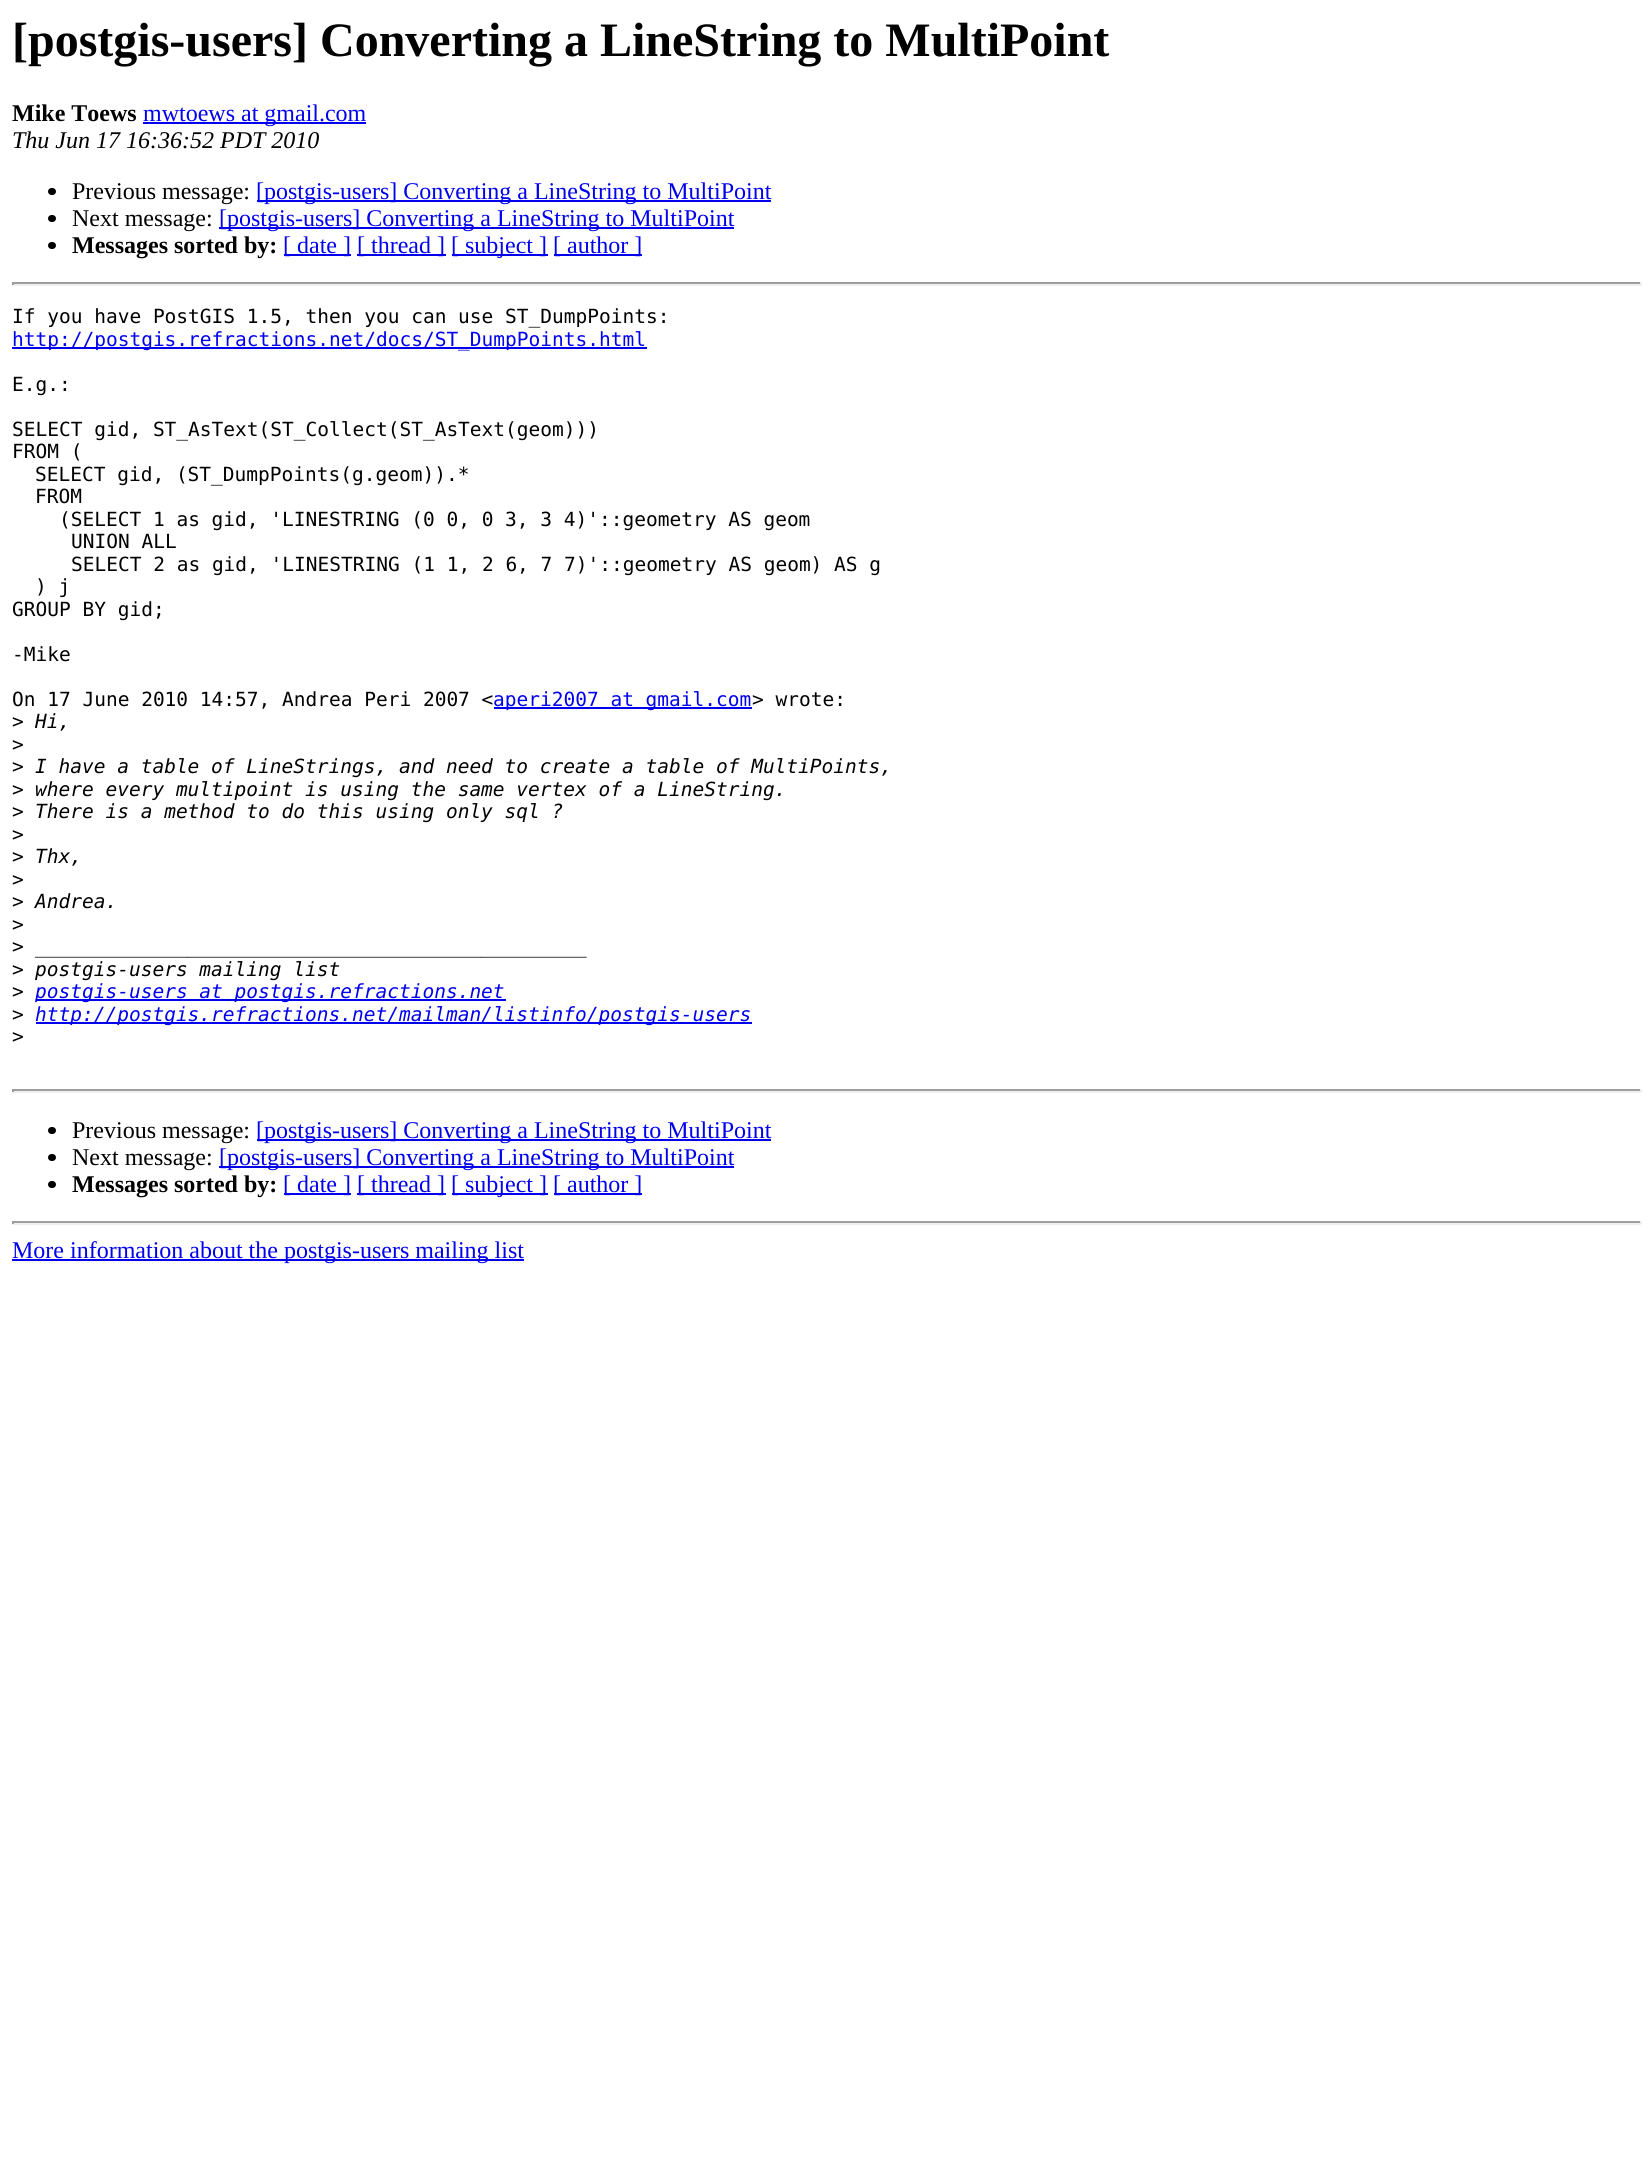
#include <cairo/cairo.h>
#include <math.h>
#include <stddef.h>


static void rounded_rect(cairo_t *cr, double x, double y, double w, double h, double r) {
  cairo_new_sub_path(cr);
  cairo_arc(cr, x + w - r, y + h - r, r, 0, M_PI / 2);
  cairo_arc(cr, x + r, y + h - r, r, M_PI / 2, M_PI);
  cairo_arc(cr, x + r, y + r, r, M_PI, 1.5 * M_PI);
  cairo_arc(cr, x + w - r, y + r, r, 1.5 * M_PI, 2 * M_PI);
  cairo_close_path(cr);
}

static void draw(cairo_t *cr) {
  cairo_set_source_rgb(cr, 1, 1, 1);
  cairo_paint(cr);
  cairo_set_source_rgb(cr, 0, 0, 238 / 255.0);
  cairo_rectangle(cr, 143, 122, 223, 2);
  cairo_fill(cr);
  cairo_set_source_rgb(cr, 0, 0, 0);
  rounded_rect(cr, 48, 188, 8, 7, 3.5);
  cairo_fill(cr);
  cairo_set_source_rgb(cr, 0, 0, 238 / 255.0);
  cairo_rectangle(cr, 257, 200, 514, 2);
  cairo_fill(cr);
  cairo_set_source_rgb(cr, 0, 0, 0);
  rounded_rect(cr, 48, 215, 8, 7, 3.5);
  cairo_fill(cr);
  cairo_set_source_rgb(cr, 0, 0, 238 / 255.0);
  cairo_rectangle(cr, 219, 227, 515, 2);
  cairo_fill(cr);
  cairo_set_source_rgb(cr, 0, 0, 0);
  rounded_rect(cr, 48, 242, 8, 7, 3.5);
  cairo_fill(cr);
  cairo_set_source_rgb(cr, 0, 0, 238 / 255.0);
  cairo_rectangle(cr, 284, 254, 67, 2);
  cairo_fill(cr);
  cairo_rectangle(cr, 357, 254, 89, 2);
  cairo_fill(cr);
  cairo_rectangle(cr, 452, 254, 96, 2);
  cairo_fill(cr);
  cairo_rectangle(cr, 554, 254, 88, 2);
  cairo_fill(cr);
  cairo_set_source_rgb(cr, 159 / 255.0, 159 / 255.0, 159 / 255.0);
  cairo_rectangle(cr, 12, 282, 1629, 2);
  cairo_fill(cr);
  cairo_set_source_rgb(cr, 238 / 255.0, 238 / 255.0, 238 / 255.0);
  cairo_rectangle(cr, 1640, 282, 2, 3);
  cairo_fill(cr);
  cairo_rectangle(cr, 12, 284, 1629, 2);
  cairo_fill(cr);
  cairo_set_source_rgb(cr, 159 / 255.0, 159 / 255.0, 159 / 255.0);
  cairo_rectangle(cr, 12, 282, 2, 3);
  cairo_fill(cr);
  cairo_set_source_rgb(cr, 0, 0, 238 / 255.0);
  cairo_rectangle(cr, 12, 347, 635, 2);
  cairo_fill(cr);
  cairo_rectangle(cr, 494, 707, 258, 2);
  cairo_fill(cr);
  cairo_rectangle(cr, 36, 999, 470, 2);
  cairo_fill(cr);
  cairo_rectangle(cr, 36, 1022, 716, 2);
  cairo_fill(cr);
  cairo_set_source_rgb(cr, 159 / 255.0, 159 / 255.0, 159 / 255.0);
  cairo_rectangle(cr, 12, 1089, 1629, 2);
  cairo_fill(cr);
  cairo_set_source_rgb(cr, 238 / 255.0, 238 / 255.0, 238 / 255.0);
  cairo_rectangle(cr, 1640, 1089, 2, 3);
  cairo_fill(cr);
  cairo_rectangle(cr, 12, 1091, 1629, 2);
  cairo_fill(cr);
  cairo_set_source_rgb(cr, 159 / 255.0, 159 / 255.0, 159 / 255.0);
  cairo_rectangle(cr, 12, 1089, 2, 3);
  cairo_fill(cr);
  cairo_set_source_rgb(cr, 0, 0, 0);
  rounded_rect(cr, 48, 1127, 8, 7, 3.5);
  cairo_fill(cr);
  cairo_set_source_rgb(cr, 0, 0, 238 / 255.0);
  cairo_rectangle(cr, 257, 1139, 514, 2);
  cairo_fill(cr);
  cairo_set_source_rgb(cr, 0, 0, 0);
  rounded_rect(cr, 48, 1154, 8, 7, 3.5);
  cairo_fill(cr);
  cairo_set_source_rgb(cr, 0, 0, 238 / 255.0);
  cairo_rectangle(cr, 219, 1166, 515, 2);
  cairo_fill(cr);
  cairo_set_source_rgb(cr, 0, 0, 0);
  rounded_rect(cr, 48, 1181, 8, 7, 3.5);
  cairo_fill(cr);
  cairo_set_source_rgb(cr, 0, 0, 238 / 255.0);
  cairo_rectangle(cr, 284, 1193, 67, 2);
  cairo_fill(cr);
  cairo_rectangle(cr, 357, 1193, 89, 2);
  cairo_fill(cr);
  cairo_rectangle(cr, 452, 1193, 96, 2);
  cairo_fill(cr);
  cairo_rectangle(cr, 554, 1193, 88, 2);
  cairo_fill(cr);
  cairo_set_source_rgb(cr, 159 / 255.0, 159 / 255.0, 159 / 255.0);
  cairo_rectangle(cr, 12, 1221, 1629, 2);
  cairo_fill(cr);
  cairo_set_source_rgb(cr, 238 / 255.0, 238 / 255.0, 238 / 255.0);
  cairo_rectangle(cr, 1640, 1221, 2, 3);
  cairo_fill(cr);
  cairo_rectangle(cr, 12, 1223, 1629, 2);
  cairo_fill(cr);
  cairo_set_source_rgb(cr, 159 / 255.0, 159 / 255.0, 159 / 255.0);
  cairo_rectangle(cr, 12, 1221, 2, 3);
  cairo_fill(cr);
  cairo_set_source_rgb(cr, 0, 0, 238 / 255.0);
  cairo_rectangle(cr, 12, 1259, 512, 2);
  cairo_fill(cr);
  cairo_select_font_face(cr, "Liberation Serif", CAIRO_FONT_SLANT_NORMAL, CAIRO_FONT_WEIGHT_BOLD);
  cairo_set_font_size(cr, 48);
  cairo_set_source_rgb(cr, 0, 0, 0);
  cairo_move_to(cr, 12, 56);
  cairo_show_text(cr, "[postgis-users] Converting a LineString to MultiPoint");
  cairo_set_font_size(cr, 24);
  cairo_move_to(cr, 12, 121);
  cairo_show_text(cr, "Mike Toews");
  cairo_select_font_face(cr, "Liberation Serif", CAIRO_FONT_SLANT_NORMAL, CAIRO_FONT_WEIGHT_NORMAL);
  cairo_set_source_rgb(cr, 0, 0, 238 / 255.0);
  cairo_move_to(cr, 143, 121);
  cairo_show_text(cr, "mwtoews at gmail.com");
  cairo_select_font_face(cr, "Liberation Serif", CAIRO_FONT_SLANT_ITALIC, CAIRO_FONT_WEIGHT_NORMAL);
  cairo_set_source_rgb(cr, 0, 0, 0);
  cairo_move_to(cr, 12, 148);
  cairo_show_text(cr, "Thu Jun 17 16:36:52 PDT 2010");
  cairo_select_font_face(cr, "Liberation Serif", CAIRO_FONT_SLANT_NORMAL, CAIRO_FONT_WEIGHT_NORMAL);
  cairo_move_to(cr, 72, 199);
  cairo_show_text(cr, "Previous message:");
  cairo_set_source_rgb(cr, 0, 0, 238 / 255.0);
  cairo_move_to(cr, 256, 199);
  cairo_show_text(cr, "[postgis-users] Converting a LineString to MultiPoint");
  cairo_set_source_rgb(cr, 0, 0, 0);
  cairo_move_to(cr, 72, 226);
  cairo_show_text(cr, "Next message:");
  cairo_set_source_rgb(cr, 0, 0, 238 / 255.0);
  cairo_move_to(cr, 219, 226);
  cairo_show_text(cr, "[postgis-users] Converting a LineString to MultiPoint");
  cairo_select_font_face(cr, "Liberation Serif", CAIRO_FONT_SLANT_NORMAL, CAIRO_FONT_WEIGHT_BOLD);
  cairo_set_source_rgb(cr, 0, 0, 0);
  cairo_move_to(cr, 72, 253);
  cairo_show_text(cr, "Messages sorted by:");
  cairo_select_font_face(cr, "Liberation Serif", CAIRO_FONT_SLANT_NORMAL, CAIRO_FONT_WEIGHT_NORMAL);
  cairo_set_source_rgb(cr, 0, 0, 238 / 255.0);
  cairo_move_to(cr, 283, 253);
  cairo_show_text(cr, "[ date ]");
  cairo_move_to(cr, 357, 253);
  cairo_show_text(cr, "[ thread ]");
  cairo_move_to(cr, 451, 253);
  cairo_show_text(cr, "[ subject ]");
  cairo_move_to(cr, 553, 253);
  cairo_show_text(cr, "[ author ]");
  cairo_select_font_face(cr, "DejaVu Sans Mono", CAIRO_FONT_SLANT_NORMAL, CAIRO_FONT_WEIGHT_NORMAL);
  cairo_set_font_size(cr, 19.5);
  cairo_set_source_rgb(cr, 0, 0, 0);
  cairo_move_to(cr, 12, 323);
  cairo_show_text(cr, "If you have PostGIS 1.5, then you can use ST_DumpPoints:");
  cairo_set_source_rgb(cr, 0, 0, 238 / 255.0);
  cairo_move_to(cr, 12, 346);
  cairo_show_text(cr, "http://postgis.refractions.net/docs/ST_DumpPoints.html");
  cairo_set_source_rgb(cr, 0, 0, 0);
  cairo_move_to(cr, 12, 391);
  cairo_show_text(cr, "E.g.:");
  cairo_move_to(cr, 12, 436);
  cairo_show_text(cr, "SELECT gid, ST_AsText(ST_Collect(ST_AsText(geom)))");
  cairo_move_to(cr, 12, 458);
  cairo_show_text(cr, "FROM (");
  cairo_move_to(cr, 35, 481);
  cairo_show_text(cr, "SELECT gid, (ST_DumpPoints(g.geom)).*");
  cairo_move_to(cr, 35, 503);
  cairo_show_text(cr, "FROM");
  cairo_move_to(cr, 59, 526);
  cairo_show_text(cr, "(SELECT 1 as gid, 'LINESTRING (0 0, 0 3, 3 4)'::geometry AS geom");
  cairo_move_to(cr, 71, 548);
  cairo_show_text(cr, "UNION ALL");
  cairo_move_to(cr, 71, 571);
  cairo_show_text(cr, "SELECT 2 as gid, 'LINESTRING (1 1, 2 6, 7 7)'::geometry AS geom) AS g");
  cairo_move_to(cr, 35, 593);
  cairo_show_text(cr, ") j");
  cairo_move_to(cr, 12, 616);
  cairo_show_text(cr, "GROUP BY gid;");
  cairo_move_to(cr, 12, 661);
  cairo_show_text(cr, "-Mike");
  cairo_move_to(cr, 12, 706);
  cairo_show_text(cr, "On 17 June 2010 14:57, Andrea Peri 2007 <");
  cairo_set_source_rgb(cr, 0, 0, 238 / 255.0);
  cairo_move_to(cr, 493, 706);
  cairo_show_text(cr, "aperi2007 at gmail.com");
  cairo_set_source_rgb(cr, 0, 0, 0);
  cairo_move_to(cr, 752, 706);
  cairo_show_text(cr, "> wrote:");
  cairo_move_to(cr, 12, 728);
  cairo_show_text(cr, ">");
  cairo_select_font_face(cr, "DejaVu Sans Mono", CAIRO_FONT_SLANT_ITALIC, CAIRO_FONT_WEIGHT_NORMAL);
  cairo_move_to(cr, 35, 728);
  cairo_show_text(cr, "Hi,");
  cairo_select_font_face(cr, "DejaVu Sans Mono", CAIRO_FONT_SLANT_NORMAL, CAIRO_FONT_WEIGHT_NORMAL);
  cairo_move_to(cr, 12, 751);
  cairo_show_text(cr, ">");
  cairo_move_to(cr, 12, 773);
  cairo_show_text(cr, ">");
  cairo_select_font_face(cr, "DejaVu Sans Mono", CAIRO_FONT_SLANT_ITALIC, CAIRO_FONT_WEIGHT_NORMAL);
  cairo_move_to(cr, 35, 773);
  cairo_show_text(cr, "I have a table of LineStrings, and need to create a table of MultiPoints,");
  cairo_select_font_face(cr, "DejaVu Sans Mono", CAIRO_FONT_SLANT_NORMAL, CAIRO_FONT_WEIGHT_NORMAL);
  cairo_move_to(cr, 12, 796);
  cairo_show_text(cr, ">");
  cairo_select_font_face(cr, "DejaVu Sans Mono", CAIRO_FONT_SLANT_ITALIC, CAIRO_FONT_WEIGHT_NORMAL);
  cairo_move_to(cr, 35, 796);
  cairo_show_text(cr, "where every multipoint is using the same vertex of a LineString.");
  cairo_select_font_face(cr, "DejaVu Sans Mono", CAIRO_FONT_SLANT_NORMAL, CAIRO_FONT_WEIGHT_NORMAL);
  cairo_move_to(cr, 12, 818);
  cairo_show_text(cr, ">");
  cairo_select_font_face(cr, "DejaVu Sans Mono", CAIRO_FONT_SLANT_ITALIC, CAIRO_FONT_WEIGHT_NORMAL);
  cairo_move_to(cr, 35, 818);
  cairo_show_text(cr, "There is a method to do this using only sql ?");
  cairo_select_font_face(cr, "DejaVu Sans Mono", CAIRO_FONT_SLANT_NORMAL, CAIRO_FONT_WEIGHT_NORMAL);
  cairo_move_to(cr, 12, 841);
  cairo_show_text(cr, ">");
  cairo_move_to(cr, 12, 863);
  cairo_show_text(cr, ">");
  cairo_select_font_face(cr, "DejaVu Sans Mono", CAIRO_FONT_SLANT_ITALIC, CAIRO_FONT_WEIGHT_NORMAL);
  cairo_move_to(cr, 35, 863);
  cairo_show_text(cr, "Thx,");
  cairo_select_font_face(cr, "DejaVu Sans Mono", CAIRO_FONT_SLANT_NORMAL, CAIRO_FONT_WEIGHT_NORMAL);
  cairo_move_to(cr, 12, 886);
  cairo_show_text(cr, ">");
  cairo_move_to(cr, 12, 908);
  cairo_show_text(cr, ">");
  cairo_select_font_face(cr, "DejaVu Sans Mono", CAIRO_FONT_SLANT_ITALIC, CAIRO_FONT_WEIGHT_NORMAL);
  cairo_move_to(cr, 35, 908);
  cairo_show_text(cr, "Andrea.");
  cairo_select_font_face(cr, "DejaVu Sans Mono", CAIRO_FONT_SLANT_NORMAL, CAIRO_FONT_WEIGHT_NORMAL);
  cairo_move_to(cr, 12, 931);
  cairo_show_text(cr, ">");
  cairo_move_to(cr, 12, 953);
  cairo_show_text(cr, ">");
  cairo_select_font_face(cr, "DejaVu Sans Mono", CAIRO_FONT_SLANT_ITALIC, CAIRO_FONT_WEIGHT_NORMAL);
  cairo_move_to(cr, 35, 953);
  cairo_show_text(cr, "_______________________________________________");
  cairo_select_font_face(cr, "DejaVu Sans Mono", CAIRO_FONT_SLANT_NORMAL, CAIRO_FONT_WEIGHT_NORMAL);
  cairo_move_to(cr, 12, 976);
  cairo_show_text(cr, ">");
  cairo_select_font_face(cr, "DejaVu Sans Mono", CAIRO_FONT_SLANT_ITALIC, CAIRO_FONT_WEIGHT_NORMAL);
  cairo_move_to(cr, 35, 976);
  cairo_show_text(cr, "postgis-users mailing list");
  cairo_select_font_face(cr, "DejaVu Sans Mono", CAIRO_FONT_SLANT_NORMAL, CAIRO_FONT_WEIGHT_NORMAL);
  cairo_move_to(cr, 12, 998);
  cairo_show_text(cr, ">");
  cairo_select_font_face(cr, "DejaVu Sans Mono", CAIRO_FONT_SLANT_ITALIC, CAIRO_FONT_WEIGHT_NORMAL);
  cairo_set_source_rgb(cr, 0, 0, 238 / 255.0);
  cairo_move_to(cr, 35, 998);
  cairo_show_text(cr, "postgis-users at postgis.refractions.net");
  cairo_select_font_face(cr, "DejaVu Sans Mono", CAIRO_FONT_SLANT_NORMAL, CAIRO_FONT_WEIGHT_NORMAL);
  cairo_set_source_rgb(cr, 0, 0, 0);
  cairo_move_to(cr, 12, 1021);
  cairo_show_text(cr, ">");
  cairo_select_font_face(cr, "DejaVu Sans Mono", CAIRO_FONT_SLANT_ITALIC, CAIRO_FONT_WEIGHT_NORMAL);
  cairo_set_source_rgb(cr, 0, 0, 238 / 255.0);
  cairo_move_to(cr, 35, 1021);
  cairo_show_text(cr, "http://postgis.refractions.net/mailman/listinfo/postgis-users");
  cairo_select_font_face(cr, "DejaVu Sans Mono", CAIRO_FONT_SLANT_NORMAL, CAIRO_FONT_WEIGHT_NORMAL);
  cairo_set_source_rgb(cr, 0, 0, 0);
  cairo_move_to(cr, 12, 1043);
  cairo_show_text(cr, ">");
  cairo_select_font_face(cr, "Liberation Serif", CAIRO_FONT_SLANT_NORMAL, CAIRO_FONT_WEIGHT_NORMAL);
  cairo_set_font_size(cr, 24);
  cairo_move_to(cr, 72, 1138);
  cairo_show_text(cr, "Previous message:");
  cairo_set_source_rgb(cr, 0, 0, 238 / 255.0);
  cairo_move_to(cr, 256, 1138);
  cairo_show_text(cr, "[postgis-users] Converting a LineString to MultiPoint");
  cairo_set_source_rgb(cr, 0, 0, 0);
  cairo_move_to(cr, 72, 1165);
  cairo_show_text(cr, "Next message:");
  cairo_set_source_rgb(cr, 0, 0, 238 / 255.0);
  cairo_move_to(cr, 219, 1165);
  cairo_show_text(cr, "[postgis-users] Converting a LineString to MultiPoint");
  cairo_select_font_face(cr, "Liberation Serif", CAIRO_FONT_SLANT_NORMAL, CAIRO_FONT_WEIGHT_BOLD);
  cairo_set_source_rgb(cr, 0, 0, 0);
  cairo_move_to(cr, 72, 1192);
  cairo_show_text(cr, "Messages sorted by:");
  cairo_select_font_face(cr, "Liberation Serif", CAIRO_FONT_SLANT_NORMAL, CAIRO_FONT_WEIGHT_NORMAL);
  cairo_set_source_rgb(cr, 0, 0, 238 / 255.0);
  cairo_move_to(cr, 283, 1192);
  cairo_show_text(cr, "[ date ]");
  cairo_move_to(cr, 357, 1192);
  cairo_show_text(cr, "[ thread ]");
  cairo_move_to(cr, 451, 1192);
  cairo_show_text(cr, "[ subject ]");
  cairo_move_to(cr, 553, 1192);
  cairo_show_text(cr, "[ author ]");
  cairo_move_to(cr, 12, 1258);
  cairo_show_text(cr, "More information about the postgis-users mailing list");
}

int main(void) {
  cairo_surface_t *surface = cairo_image_surface_create(CAIRO_FORMAT_RGB24, 1652, 2160);
  cairo_t *cr = cairo_create(surface);
  cairo_font_options_t *options = cairo_font_options_create();
  cairo_font_options_set_hint_metrics(options, CAIRO_HINT_METRICS_OFF);
  cairo_font_options_set_hint_style(options, CAIRO_HINT_STYLE_NONE);
  cairo_set_font_options(cr, options);
  cairo_set_miter_limit(cr, 4);
  draw(cr);
  cairo_surface_write_to_png(surface, "out.png");
  cairo_font_options_destroy(options);
  cairo_destroy(cr);
  cairo_surface_destroy(surface);
  return 0;
}
